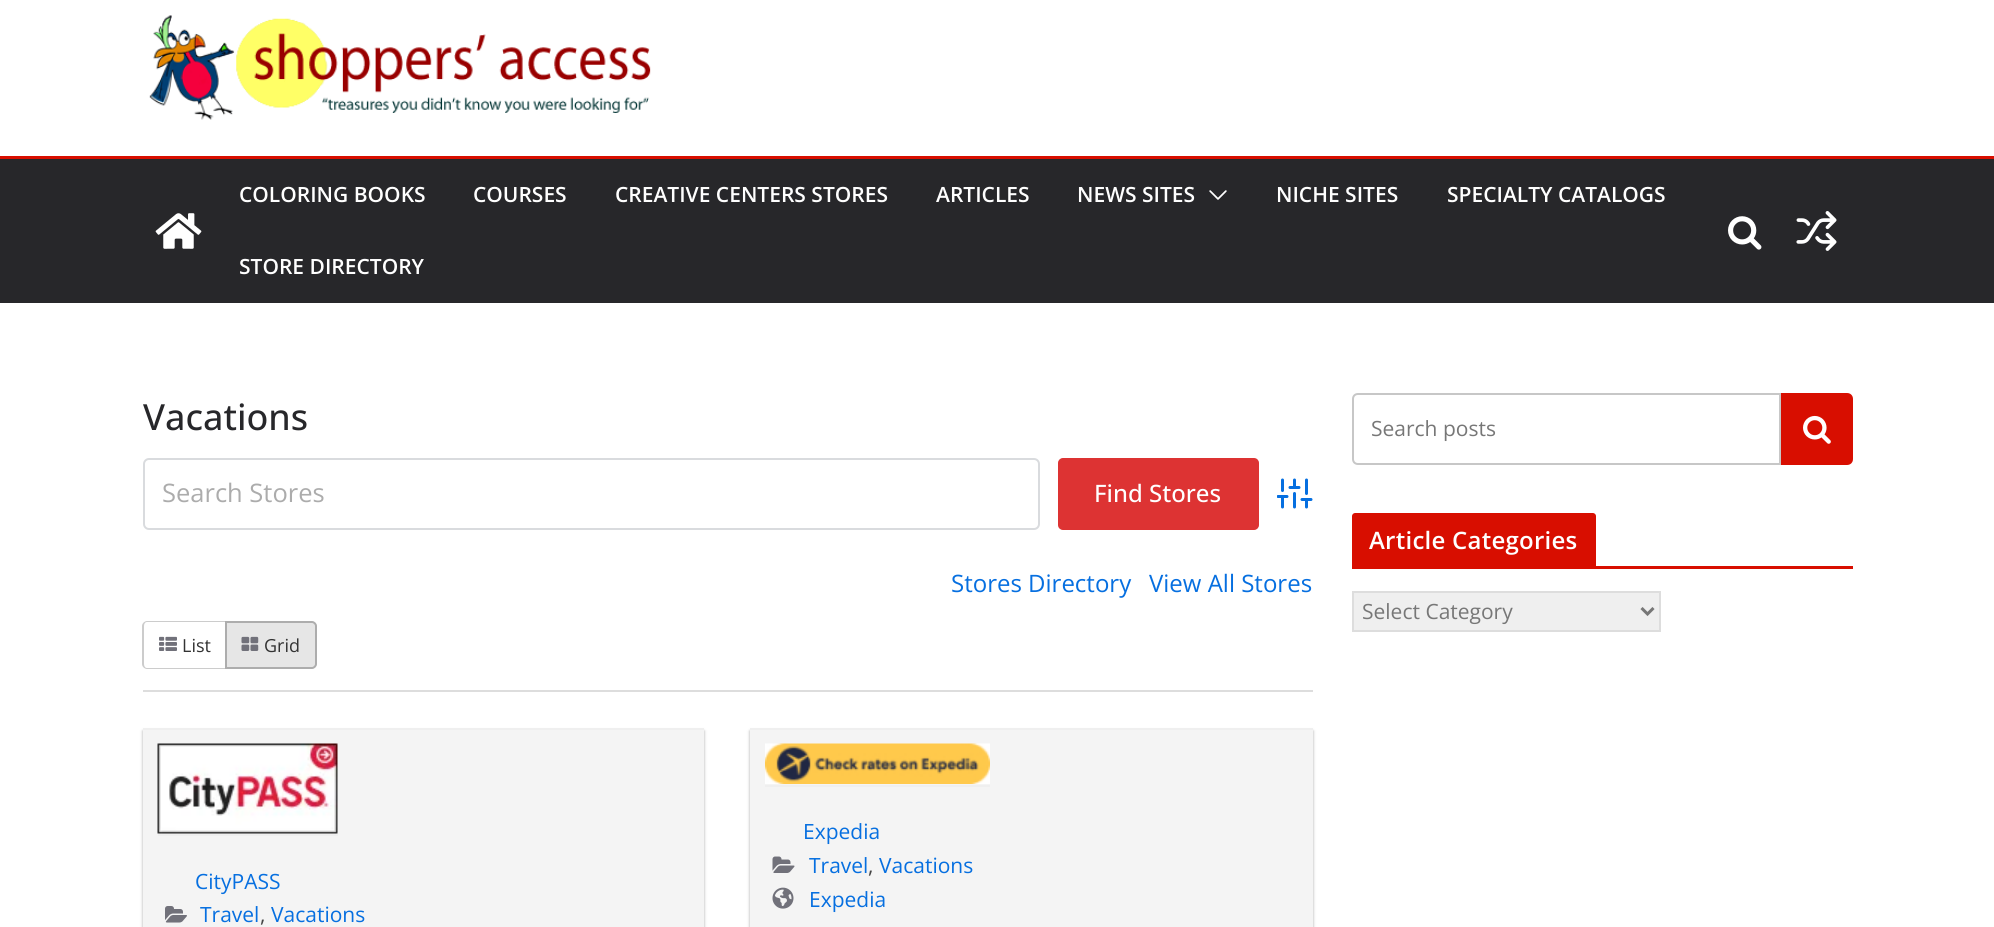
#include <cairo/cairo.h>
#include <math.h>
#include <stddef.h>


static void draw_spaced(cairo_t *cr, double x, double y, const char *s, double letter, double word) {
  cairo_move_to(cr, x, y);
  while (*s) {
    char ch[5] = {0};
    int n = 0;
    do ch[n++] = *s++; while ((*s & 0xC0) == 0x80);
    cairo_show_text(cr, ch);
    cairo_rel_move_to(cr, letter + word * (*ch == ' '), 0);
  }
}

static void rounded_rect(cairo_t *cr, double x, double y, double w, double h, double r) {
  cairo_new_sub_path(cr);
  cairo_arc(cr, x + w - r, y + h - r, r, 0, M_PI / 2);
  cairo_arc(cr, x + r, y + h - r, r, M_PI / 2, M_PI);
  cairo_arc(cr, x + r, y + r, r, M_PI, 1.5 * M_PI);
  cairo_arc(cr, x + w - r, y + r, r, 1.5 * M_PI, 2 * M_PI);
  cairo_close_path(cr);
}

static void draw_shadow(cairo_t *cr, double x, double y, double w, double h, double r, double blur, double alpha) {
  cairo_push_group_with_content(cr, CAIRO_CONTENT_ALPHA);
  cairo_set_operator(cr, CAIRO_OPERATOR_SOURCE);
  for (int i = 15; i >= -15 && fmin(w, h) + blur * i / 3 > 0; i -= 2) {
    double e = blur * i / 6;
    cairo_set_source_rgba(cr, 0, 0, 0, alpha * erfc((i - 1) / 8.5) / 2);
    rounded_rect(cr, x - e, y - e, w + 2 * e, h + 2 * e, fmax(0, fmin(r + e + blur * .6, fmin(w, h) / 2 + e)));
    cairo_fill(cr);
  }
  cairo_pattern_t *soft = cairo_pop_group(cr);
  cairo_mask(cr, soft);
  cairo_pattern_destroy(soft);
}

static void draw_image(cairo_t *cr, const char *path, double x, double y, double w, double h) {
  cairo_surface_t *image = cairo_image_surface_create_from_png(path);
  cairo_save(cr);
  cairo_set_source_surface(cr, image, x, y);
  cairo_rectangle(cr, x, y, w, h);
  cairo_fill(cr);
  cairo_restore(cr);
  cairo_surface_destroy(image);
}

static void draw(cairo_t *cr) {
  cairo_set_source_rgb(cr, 1, 1, 1);
  cairo_paint(cr);
  draw_image(cr, "images/1.png", 149, 15, 502, 105);
  cairo_set_source_rgb(cr, 39 / 255.0, 39 / 255.0, 42 / 255.0);
  cairo_rectangle(cr, 0, 159, 1994, 144);
  cairo_fill(cr);
  cairo_set_source_rgb(cr, 216 / 255.0, 14 / 255.0, 0);
  cairo_rectangle(cr, 0, 156, 1994, 3);
  cairo_fill(cr);
  draw_image(cr, "images/2.png", 155, 213, 47, 36);
  draw_image(cr, "images/3.png", 1209, 190, 18, 10);
  draw_image(cr, "images/4.png", 1728, 216, 34, 34);
  draw_image(cr, "images/5.png", 1796, 211, 41, 40);
  rounded_rect(cr, 144, 459, 895, 70, 5);
  cairo_set_source_rgb(cr, 217 / 255.0, 219 / 255.0, 222 / 255.0);
  cairo_stroke(cr);
  cairo_set_source_rgb(cr, 221 / 255.0, 51 / 255.0, 51 / 255.0);
  rounded_rect(cr, 1059, 459, 199, 70, 4);
  cairo_fill_preserve(cr);
  cairo_stroke(cr);
  cairo_save(cr);
  cairo_rectangle(cr, 1277, 476, 36, 36);
  cairo_clip(cr);
  cairo_new_path(cr);
  cairo_move_to(cr, 1282.5, 507);
  cairo_line_to(cr, 1282.5, 496.5);
  cairo_move_to(cr, 1282.5, 490.5);
  cairo_line_to(cr, 1282.5, 480);
  cairo_move_to(cr, 1294.5, 507);
  cairo_line_to(cr, 1294.5, 493.5);
  cairo_move_to(cr, 1294.5, 487.5);
  cairo_line_to(cr, 1294.5, 480);
  cairo_move_to(cr, 1306.5, 507);
  cairo_line_to(cr, 1306.5, 499.5);
  cairo_move_to(cr, 1306.5, 493.5);
  cairo_line_to(cr, 1306.5, 480);
  cairo_move_to(cr, 1278, 496.5);
  cairo_line_to(cr, 1287, 496.5);
  cairo_move_to(cr, 1290, 487.5);
  cairo_line_to(cr, 1299, 487.5);
  cairo_move_to(cr, 1302, 499.5);
  cairo_line_to(cr, 1311, 499.5);
  cairo_set_source_rgb(cr, 6 / 255.0, 111 / 255.0, 224 / 255.0);
  cairo_set_line_width(cr, 3);
  cairo_set_line_cap(cr, CAIRO_LINE_CAP_ROUND);
  cairo_set_line_join(cr, CAIRO_LINE_JOIN_ROUND);
  cairo_stroke(cr);
  cairo_restore(cr);
  cairo_set_source_rgb(cr, 221 / 255.0, 221 / 255.0, 221 / 255.0);
  cairo_rectangle(cr, 143, 690, 1170, 2);
  cairo_fill(cr);
  cairo_set_source_rgb(cr, 204 / 255.0, 204 / 255.0, 204 / 255.0);
  cairo_set_fill_rule(cr, CAIRO_FILL_RULE_EVEN_ODD);
  cairo_new_path(cr);
  cairo_move_to(cr, 147, 621);
  cairo_line_to(cr, 225, 621);
  cairo_line_to(cr, 225, 669);
  cairo_line_to(cr, 147, 669);
  cairo_curve_to(cr, 145, 669, 142, 667, 142, 664);
  cairo_line_to(cr, 142, 626);
  cairo_curve_to(cr, 142, 623, 145, 621, 147, 621);
  cairo_close_path(cr);
  cairo_move_to(cr, 147, 622);
  cairo_line_to(cr, 225, 622);
  cairo_line_to(cr, 225, 668);
  cairo_line_to(cr, 147, 668);
  cairo_curve_to(cr, 145, 668, 144, 666, 144, 664);
  cairo_line_to(cr, 144, 626);
  cairo_curve_to(cr, 144, 624, 145, 622, 147, 622);
  cairo_close_path(cr);
  cairo_fill(cr);
  draw_image(cr, "images/6.png", 159, 636, 18, 15);
  cairo_set_source_rgb(cr, 230 / 255.0, 230 / 255.0, 230 / 255.0);
  cairo_new_path(cr);
  cairo_move_to(cr, 226, 622);
  cairo_line_to(cr, 312, 622);
  cairo_curve_to(cr, 314, 622, 316, 624, 316, 626);
  cairo_line_to(cr, 316, 664);
  cairo_curve_to(cr, 316, 666, 314, 668, 312, 668);
  cairo_line_to(cr, 226, 668);
  cairo_close_path(cr);
  cairo_fill_preserve(cr);
  cairo_set_source_rgb(cr, 173 / 255.0, 173 / 255.0, 173 / 255.0);
  cairo_stroke(cr);
  draw_image(cr, "images/7.png", 241, 636, 18, 15);
  cairo_set_source_rgb(cr, 85 / 255.0, 85 / 255.0, 85 / 255.0);
  draw_shadow(cr, 143, 731, 561, 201, 0, 1.5, 0.5);
  cairo_set_source_rgb(cr, 244 / 255.0, 244 / 255.0, 244 / 255.0);
  cairo_rectangle(cr, 143, 730, 561, 197);
  cairo_fill(cr);
  cairo_set_source_rgb(cr, 239 / 255.0, 239 / 255.0, 239 / 255.0);
  cairo_rectangle(cr, 143, 728, 561, 2);
  cairo_fill(cr);
  cairo_rectangle(cr, 158, 834, 180, 2);
  cairo_fill(cr);
  draw_image(cr, "images/8.png", 157, 743, 181, 91);
  draw_image(cr, "images/9.png", 165, 906, 22, 17);
  cairo_set_source_rgb(cr, 85 / 255.0, 85 / 255.0, 85 / 255.0);
  draw_shadow(cr, 750, 731, 563, 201, 0, 1.5, 0.5);
  cairo_set_source_rgb(cr, 244 / 255.0, 244 / 255.0, 244 / 255.0);
  cairo_rectangle(cr, 750, 730, 563, 197);
  cairo_fill(cr);
  cairo_set_source_rgb(cr, 239 / 255.0, 239 / 255.0, 239 / 255.0);
  cairo_rectangle(cr, 750, 728, 563, 2);
  cairo_fill(cr);
  cairo_rectangle(cr, 765, 785, 225, 2);
  cairo_fill(cr);
  draw_image(cr, "images/10.png", 765, 743, 225, 41);
  draw_image(cr, "images/11.png", 772, 856, 23, 17);
  draw_image(cr, "images/12.png", 772, 887, 22, 22);
  cairo_new_path(cr);
  cairo_move_to(cr, 1358, 394);
  cairo_line_to(cr, 1780, 394);
  cairo_line_to(cr, 1780, 464);
  cairo_line_to(cr, 1358, 464);
  cairo_curve_to(cr, 1355, 464, 1353, 462, 1353, 459);
  cairo_line_to(cr, 1353, 399);
  cairo_curve_to(cr, 1353, 396, 1355, 394, 1358, 394);
  cairo_close_path(cr);
  cairo_set_source_rgb(cr, 199 / 255.0, 199 / 255.0, 199 / 255.0);
  cairo_stroke(cr);
  cairo_set_source_rgb(cr, 216 / 255.0, 14 / 255.0, 0);
  cairo_new_path(cr);
  cairo_move_to(cr, 1781, 393);
  cairo_line_to(cr, 1847, 393);
  cairo_curve_to(cr, 1850.5, 393, 1853, 395.5, 1853, 399);
  cairo_line_to(cr, 1853, 459);
  cairo_curve_to(cr, 1853, 462.5, 1850.5, 465, 1847, 465);
  cairo_line_to(cr, 1781, 465);
  cairo_close_path(cr);
  cairo_fill(cr);
  draw_image(cr, "images/13.png", 1803, 415, 28, 29);
  cairo_rectangle(cr, 1352, 566, 501, 3);
  cairo_fill(cr);
  cairo_new_path(cr);
  cairo_move_to(cr, 1355, 513);
  cairo_line_to(cr, 1593, 513);
  cairo_curve_to(cr, 1594.5, 513, 1596, 514.5, 1596, 516);
  cairo_line_to(cr, 1596, 566);
  cairo_line_to(cr, 1352, 566);
  cairo_line_to(cr, 1352, 516);
  cairo_curve_to(cr, 1352, 514.5, 1353.5, 513, 1355, 513);
  cairo_close_path(cr);
  cairo_fill(cr);
  cairo_set_source_rgb(cr, 239 / 255.0, 239 / 255.0, 239 / 255.0);
  cairo_rectangle(cr, 1353, 592, 307, 39);
  cairo_fill_preserve(cr);
  cairo_set_source_rgb(cr, 221 / 255.0, 221 / 255.0, 221 / 255.0);
  cairo_stroke(cr);
  cairo_new_path(cr);
  cairo_move_to(cr, 1641.5, 608);
  cairo_line_to(cr, 1647.5, 614);
  cairo_line_to(cr, 1653.5, 608);
  cairo_set_source_rgb(cr, 119 / 255.0, 119 / 255.0, 119 / 255.0);
  cairo_set_line_width(cr, 3);
  cairo_stroke(cr);
  cairo_select_font_face(cr, "Open Sans SemiBold", CAIRO_FONT_SLANT_NORMAL, CAIRO_FONT_WEIGHT_NORMAL);
  cairo_set_font_size(cr, 21);
  cairo_set_source_rgb(cr, 1, 1, 1);
  cairo_move_to(cr, 239, 202);
  cairo_show_text(cr, "COLORING BOOKS");
  cairo_move_to(cr, 473, 202);
  cairo_show_text(cr, "COURSES");
  cairo_move_to(cr, 615, 202);
  cairo_show_text(cr, "CREATIVE CENTERS STORES");
  cairo_move_to(cr, 936, 202);
  cairo_show_text(cr, "ARTICLES");
  cairo_move_to(cr, 1077, 202);
  cairo_show_text(cr, "NEWS SITES");
  cairo_move_to(cr, 1276, 202);
  cairo_show_text(cr, "NICHE SITES");
  cairo_move_to(cr, 1447, 202);
  cairo_show_text(cr, "SPECIALTY CATALOGS");
  cairo_move_to(cr, 239, 274);
  cairo_show_text(cr, "STORE DIRECTORY");
  cairo_select_font_face(cr, "Open Sans Medium", CAIRO_FONT_SLANT_NORMAL, CAIRO_FONT_WEIGHT_NORMAL);
  cairo_set_font_size(cr, 36);
  cairo_set_source_rgb(cr, 39 / 255.0, 39 / 255.0, 42 / 255.0);
  cairo_move_to(cr, 143, 430);
  cairo_show_text(cr, "Vacations");
  cairo_select_font_face(cr, "Open Sans", CAIRO_FONT_SLANT_NORMAL, CAIRO_FONT_WEIGHT_NORMAL);
  cairo_set_font_size(cr, 25.5);
  cairo_set_source_rgb(cr, 172 / 255.0, 172 / 255.0, 172 / 255.0);
  cairo_move_to(cr, 162, 502);
  cairo_show_text(cr, "Search Stores");
  cairo_select_font_face(cr, "Open Sans Medium", CAIRO_FONT_SLANT_NORMAL, CAIRO_FONT_WEIGHT_NORMAL);
  cairo_set_font_size(cr, 24);
  cairo_set_source_rgb(cr, 1, 1, 1);
  cairo_move_to(cr, 1094, 502);
  cairo_show_text(cr, "Find Stores");
  cairo_select_font_face(cr, "Open Sans", CAIRO_FONT_SLANT_NORMAL, CAIRO_FONT_WEIGHT_NORMAL);
  cairo_set_source_rgb(cr, 6 / 255.0, 111 / 255.0, 224 / 255.0);
  cairo_move_to(cr, 951, 592);
  cairo_show_text(cr, "Stores Directory");
  cairo_move_to(cr, 1149, 592);
  cairo_show_text(cr, "View All Stores");
  cairo_set_font_size(cr, 18);
  cairo_set_source_rgb(cr, 51 / 255.0, 51 / 255.0, 51 / 255.0);
  cairo_move_to(cr, 182, 652);
  cairo_show_text(cr, "List");
  cairo_move_to(cr, 264, 652);
  cairo_show_text(cr, "Grid");
  cairo_set_font_size(cr, 21);
  cairo_set_source_rgb(cr, 6 / 255.0, 111 / 255.0, 224 / 255.0);
  cairo_move_to(cr, 195, 889);
  cairo_show_text(cr, "CityPASS");
  cairo_move_to(cr, 200, 922);
  cairo_show_text(cr, "Travel");
  cairo_set_source_rgb(cr, 68 / 255.0, 68 / 255.0, 68 / 255.0);
  cairo_move_to(cr, 260, 922);
  cairo_show_text(cr, ",");
  cairo_set_source_rgb(cr, 6 / 255.0, 111 / 255.0, 224 / 255.0);
  cairo_move_to(cr, 271, 922);
  cairo_show_text(cr, "Vacations");
  cairo_move_to(cr, 803, 839);
  cairo_show_text(cr, "Expedia");
  cairo_move_to(cr, 809, 873);
  cairo_show_text(cr, "Travel");
  cairo_set_source_rgb(cr, 68 / 255.0, 68 / 255.0, 68 / 255.0);
  cairo_move_to(cr, 868, 873);
  cairo_show_text(cr, ",");
  cairo_set_source_rgb(cr, 6 / 255.0, 111 / 255.0, 224 / 255.0);
  cairo_move_to(cr, 879, 873);
  cairo_show_text(cr, "Vacations");
  cairo_move_to(cr, 809, 907);
  cairo_show_text(cr, "Expedia");
  cairo_set_source_rgb(cr, 119 / 255.0, 119 / 255.0, 119 / 255.0);
  cairo_move_to(cr, 1371, 436);
  cairo_show_text(cr, "Search posts");
  cairo_select_font_face(cr, "Open Sans SemiBold", CAIRO_FONT_SLANT_NORMAL, CAIRO_FONT_WEIGHT_NORMAL);
  cairo_set_font_size(cr, 24);
  cairo_set_source_rgb(cr, 1, 1, 1);
  draw_spaced(cr, 1369, 549, "Article Categories", 0.25, 0);
  cairo_select_font_face(cr, "Open Sans", CAIRO_FONT_SLANT_NORMAL, CAIRO_FONT_WEIGHT_NORMAL);
  cairo_set_font_size(cr, 21);
  cairo_set_source_rgb(cr, 119 / 255.0, 119 / 255.0, 119 / 255.0);
  cairo_move_to(cr, 1362, 619);
  cairo_show_text(cr, "Select Category");
}

int main(void) {
  cairo_surface_t *surface = cairo_image_surface_create(CAIRO_FORMAT_RGB24, 1994, 927);
  cairo_t *cr = cairo_create(surface);
  cairo_font_options_t *options = cairo_font_options_create();
  cairo_font_options_set_hint_metrics(options, CAIRO_HINT_METRICS_OFF);
  cairo_font_options_set_hint_style(options, CAIRO_HINT_STYLE_NONE);
  cairo_set_font_options(cr, options);
  cairo_set_miter_limit(cr, 4);
  draw(cr);
  cairo_surface_write_to_png(surface, "out.png");
  cairo_font_options_destroy(options);
  cairo_destroy(cr);
  cairo_surface_destroy(surface);
  return 0;
}
